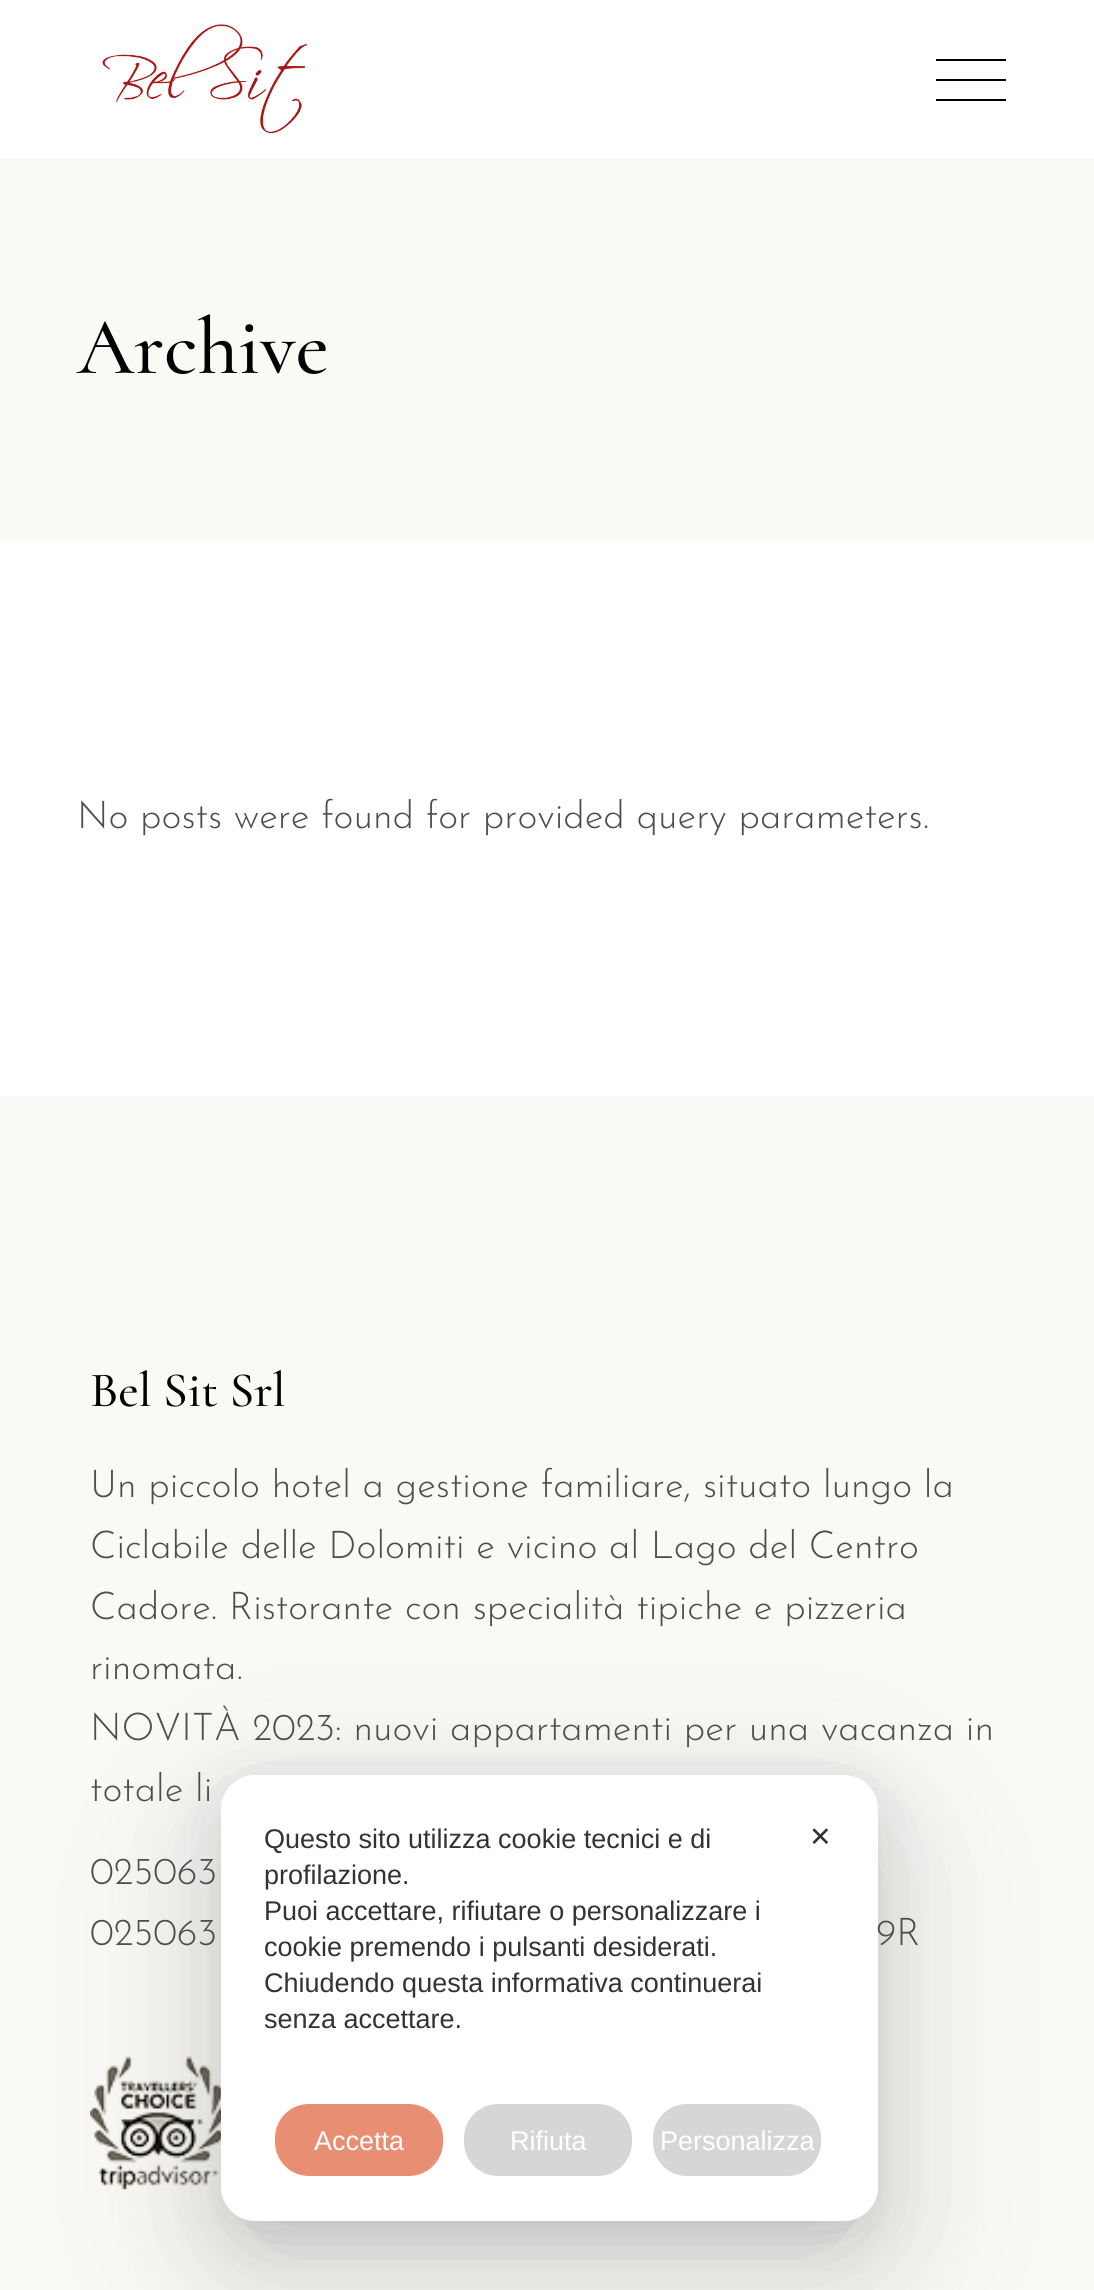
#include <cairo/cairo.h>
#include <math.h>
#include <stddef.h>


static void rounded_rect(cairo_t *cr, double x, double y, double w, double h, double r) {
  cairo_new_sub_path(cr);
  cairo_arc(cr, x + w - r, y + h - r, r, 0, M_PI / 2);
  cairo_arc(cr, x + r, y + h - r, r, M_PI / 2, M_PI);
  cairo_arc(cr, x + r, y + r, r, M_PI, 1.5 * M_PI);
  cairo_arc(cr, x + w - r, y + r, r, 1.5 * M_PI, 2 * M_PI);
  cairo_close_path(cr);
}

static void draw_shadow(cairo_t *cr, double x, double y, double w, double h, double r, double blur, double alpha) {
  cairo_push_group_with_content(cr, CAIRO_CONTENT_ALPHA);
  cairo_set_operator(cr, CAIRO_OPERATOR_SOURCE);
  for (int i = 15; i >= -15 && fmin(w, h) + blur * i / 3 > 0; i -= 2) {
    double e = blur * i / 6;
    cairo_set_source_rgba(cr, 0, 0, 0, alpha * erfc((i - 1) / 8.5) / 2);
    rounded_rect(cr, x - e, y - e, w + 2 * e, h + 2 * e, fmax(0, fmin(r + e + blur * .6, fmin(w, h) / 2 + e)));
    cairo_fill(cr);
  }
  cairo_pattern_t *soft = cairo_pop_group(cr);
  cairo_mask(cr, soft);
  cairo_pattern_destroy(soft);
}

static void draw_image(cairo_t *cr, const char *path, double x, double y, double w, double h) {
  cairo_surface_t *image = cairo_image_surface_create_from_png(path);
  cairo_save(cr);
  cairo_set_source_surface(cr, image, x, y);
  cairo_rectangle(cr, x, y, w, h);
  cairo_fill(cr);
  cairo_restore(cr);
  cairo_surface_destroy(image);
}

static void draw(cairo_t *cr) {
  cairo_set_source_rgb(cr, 1, 1, 1);
  cairo_paint(cr);
  draw_image(cr, "images/1.png", 102, 24, 205, 110);
  cairo_set_source_rgb(cr, 0, 0, 0);
  cairo_rectangle(cr, 936, 59, 70, 2);
  cairo_fill(cr);
  cairo_rectangle(cr, 936, 79, 70, 2);
  cairo_fill(cr);
  cairo_rectangle(cr, 936, 99, 70, 2);
  cairo_fill(cr);
  cairo_set_source_rgb(cr, 250 / 255.0, 249 / 255.0, 245 / 255.0);
  cairo_rectangle(cr, 0, 158, 1094, 382);
  cairo_fill(cr);
  cairo_rectangle(cr, 0, 1096, 1094, 1194);
  cairo_fill(cr);
  draw_image(cr, "images/2.png", 90, 2056, 131, 134);
  cairo_set_source_rgb(cr, 17 / 255.0, 17 / 255.0, 26 / 255.0);
  draw_shadow(cr, 221, 1829, 657, 446, 34, 90, 0.1);
  draw_shadow(cr, 221, 1811, 657, 446, 34, 63, 0.1);
  draw_shadow(cr, 221, 1793, 657, 446, 34, 27, 0.1);
  cairo_set_source_rgb(cr, 1, 1, 1);
  rounded_rect(cr, 221, 1775, 657, 446, 34);
  cairo_fill(cr);
  cairo_set_source_rgb(cr, 232 / 255.0, 142 / 255.0, 115 / 255.0);
  rounded_rect(cr, 275, 2104, 168, 72, 34);
  cairo_fill(cr);
  cairo_set_source_rgb(cr, 214 / 255.0, 214 / 255.0, 214 / 255.0);
  rounded_rect(cr, 464, 2104, 168, 72, 34);
  cairo_fill(cr);
  rounded_rect(cr, 653, 2104, 168, 72, 34);
  cairo_fill(cr);
  cairo_select_font_face(cr, "Cormorant Medium", CAIRO_FONT_SLANT_NORMAL, CAIRO_FONT_WEIGHT_NORMAL);
  cairo_set_font_size(cr, 81);
  cairo_set_source_rgb(cr, 0, 0, 0);
  cairo_move_to(cr, 77, 373);
  cairo_show_text(cr, "Archive");
  cairo_select_font_face(cr, "Josefin Sans Light", CAIRO_FONT_SLANT_NORMAL, CAIRO_FONT_WEIGHT_NORMAL);
  cairo_set_font_size(cr, 38.25);
  cairo_set_source_rgb(cr, 77 / 255.0, 77 / 255.0, 77 / 255.0);
  cairo_move_to(cr, 77, 828);
  cairo_show_text(cr, "No posts were found for provided query parameters.");
  cairo_select_font_face(cr, "Cormorant Medium", CAIRO_FONT_SLANT_NORMAL, CAIRO_FONT_WEIGHT_NORMAL);
  cairo_set_font_size(cr, 49.5);
  cairo_set_source_rgb(cr, 0, 0, 0);
  cairo_move_to(cr, 90, 1406);
  cairo_show_text(cr, "Bel Sit Srl");
  cairo_select_font_face(cr, "Josefin Sans Light", CAIRO_FONT_SLANT_NORMAL, CAIRO_FONT_WEIGHT_NORMAL);
  cairo_set_font_size(cr, 38.25);
  cairo_set_source_rgb(cr, 77 / 255.0, 77 / 255.0, 77 / 255.0);
  cairo_move_to(cr, 90, 1497);
  cairo_show_text(cr, "Un piccolo hotel a gestione familiare, situato lungo la");
  cairo_move_to(cr, 90, 1558);
  cairo_show_text(cr, "Ciclabile delle Dolomiti e vicino al Lago del Centro");
  cairo_move_to(cr, 90, 1619);
  cairo_show_text(cr, "Cadore. Ristorante con specialità tipiche e pizzeria");
  cairo_move_to(cr, 90, 1679);
  cairo_show_text(cr, "rinomata.");
  cairo_move_to(cr, 90, 1740);
  cairo_show_text(cr, "NOVITÀ 2023: nuovi appartamenti per una vacanza in");
  cairo_move_to(cr, 90, 1801);
  cairo_show_text(cr, "totale li");
  cairo_move_to(cr, 90, 1884);
  cairo_show_text(cr, "025063");
  cairo_move_to(cr, 90, 1945);
  cairo_show_text(cr, "025063");
  cairo_move_to(cr, 876, 1945);
  cairo_show_text(cr, "9R");
  cairo_select_font_face(cr, "Liberation Sans", CAIRO_FONT_SLANT_NORMAL, CAIRO_FONT_WEIGHT_NORMAL);
  cairo_set_font_size(cr, 27);
  cairo_set_source_rgb(cr, 51 / 255.0, 51 / 255.0, 51 / 255.0);
  cairo_move_to(cr, 264, 1848);
  cairo_show_text(cr, "Questo sito utilizza cookie tecnici e di");
  cairo_move_to(cr, 264, 1884);
  cairo_show_text(cr, "profilazione.");
  cairo_move_to(cr, 264, 1920);
  cairo_show_text(cr, "Puoi accettare, rifiutare o personalizzare i");
  cairo_move_to(cr, 264, 1956);
  cairo_show_text(cr, "cookie premendo i pulsanti desiderati.");
  cairo_move_to(cr, 264, 1992);
  cairo_show_text(cr, "Chiudendo questa informativa continuerai");
  cairo_move_to(cr, 264, 2028);
  cairo_show_text(cr, "senza accettare.");
  cairo_set_source_rgb(cr, 1, 1, 1);
  cairo_move_to(cr, 314, 2150);
  cairo_show_text(cr, "Accetta");
  cairo_move_to(cr, 510, 2150);
  cairo_show_text(cr, "Rifiuta");
  cairo_move_to(cr, 660, 2150);
  cairo_show_text(cr, "Personalizza");
  cairo_select_font_face(cr, "DejaVu Sans", CAIRO_FONT_SLANT_NORMAL, CAIRO_FONT_WEIGHT_NORMAL);
  cairo_set_source_rgb(cr, 51 / 255.0, 51 / 255.0, 51 / 255.0);
  cairo_move_to(cr, 809, 1846);
  cairo_show_text(cr, "✕");
}

int main(void) {
  cairo_surface_t *surface = cairo_image_surface_create(CAIRO_FORMAT_RGB24, 1094, 2290);
  cairo_t *cr = cairo_create(surface);
  cairo_font_options_t *options = cairo_font_options_create();
  cairo_font_options_set_hint_metrics(options, CAIRO_HINT_METRICS_OFF);
  cairo_font_options_set_hint_style(options, CAIRO_HINT_STYLE_NONE);
  cairo_set_font_options(cr, options);
  cairo_set_miter_limit(cr, 4);
  draw(cr);
  cairo_surface_write_to_png(surface, "out.png");
  cairo_font_options_destroy(options);
  cairo_destroy(cr);
  cairo_surface_destroy(surface);
  return 0;
}
